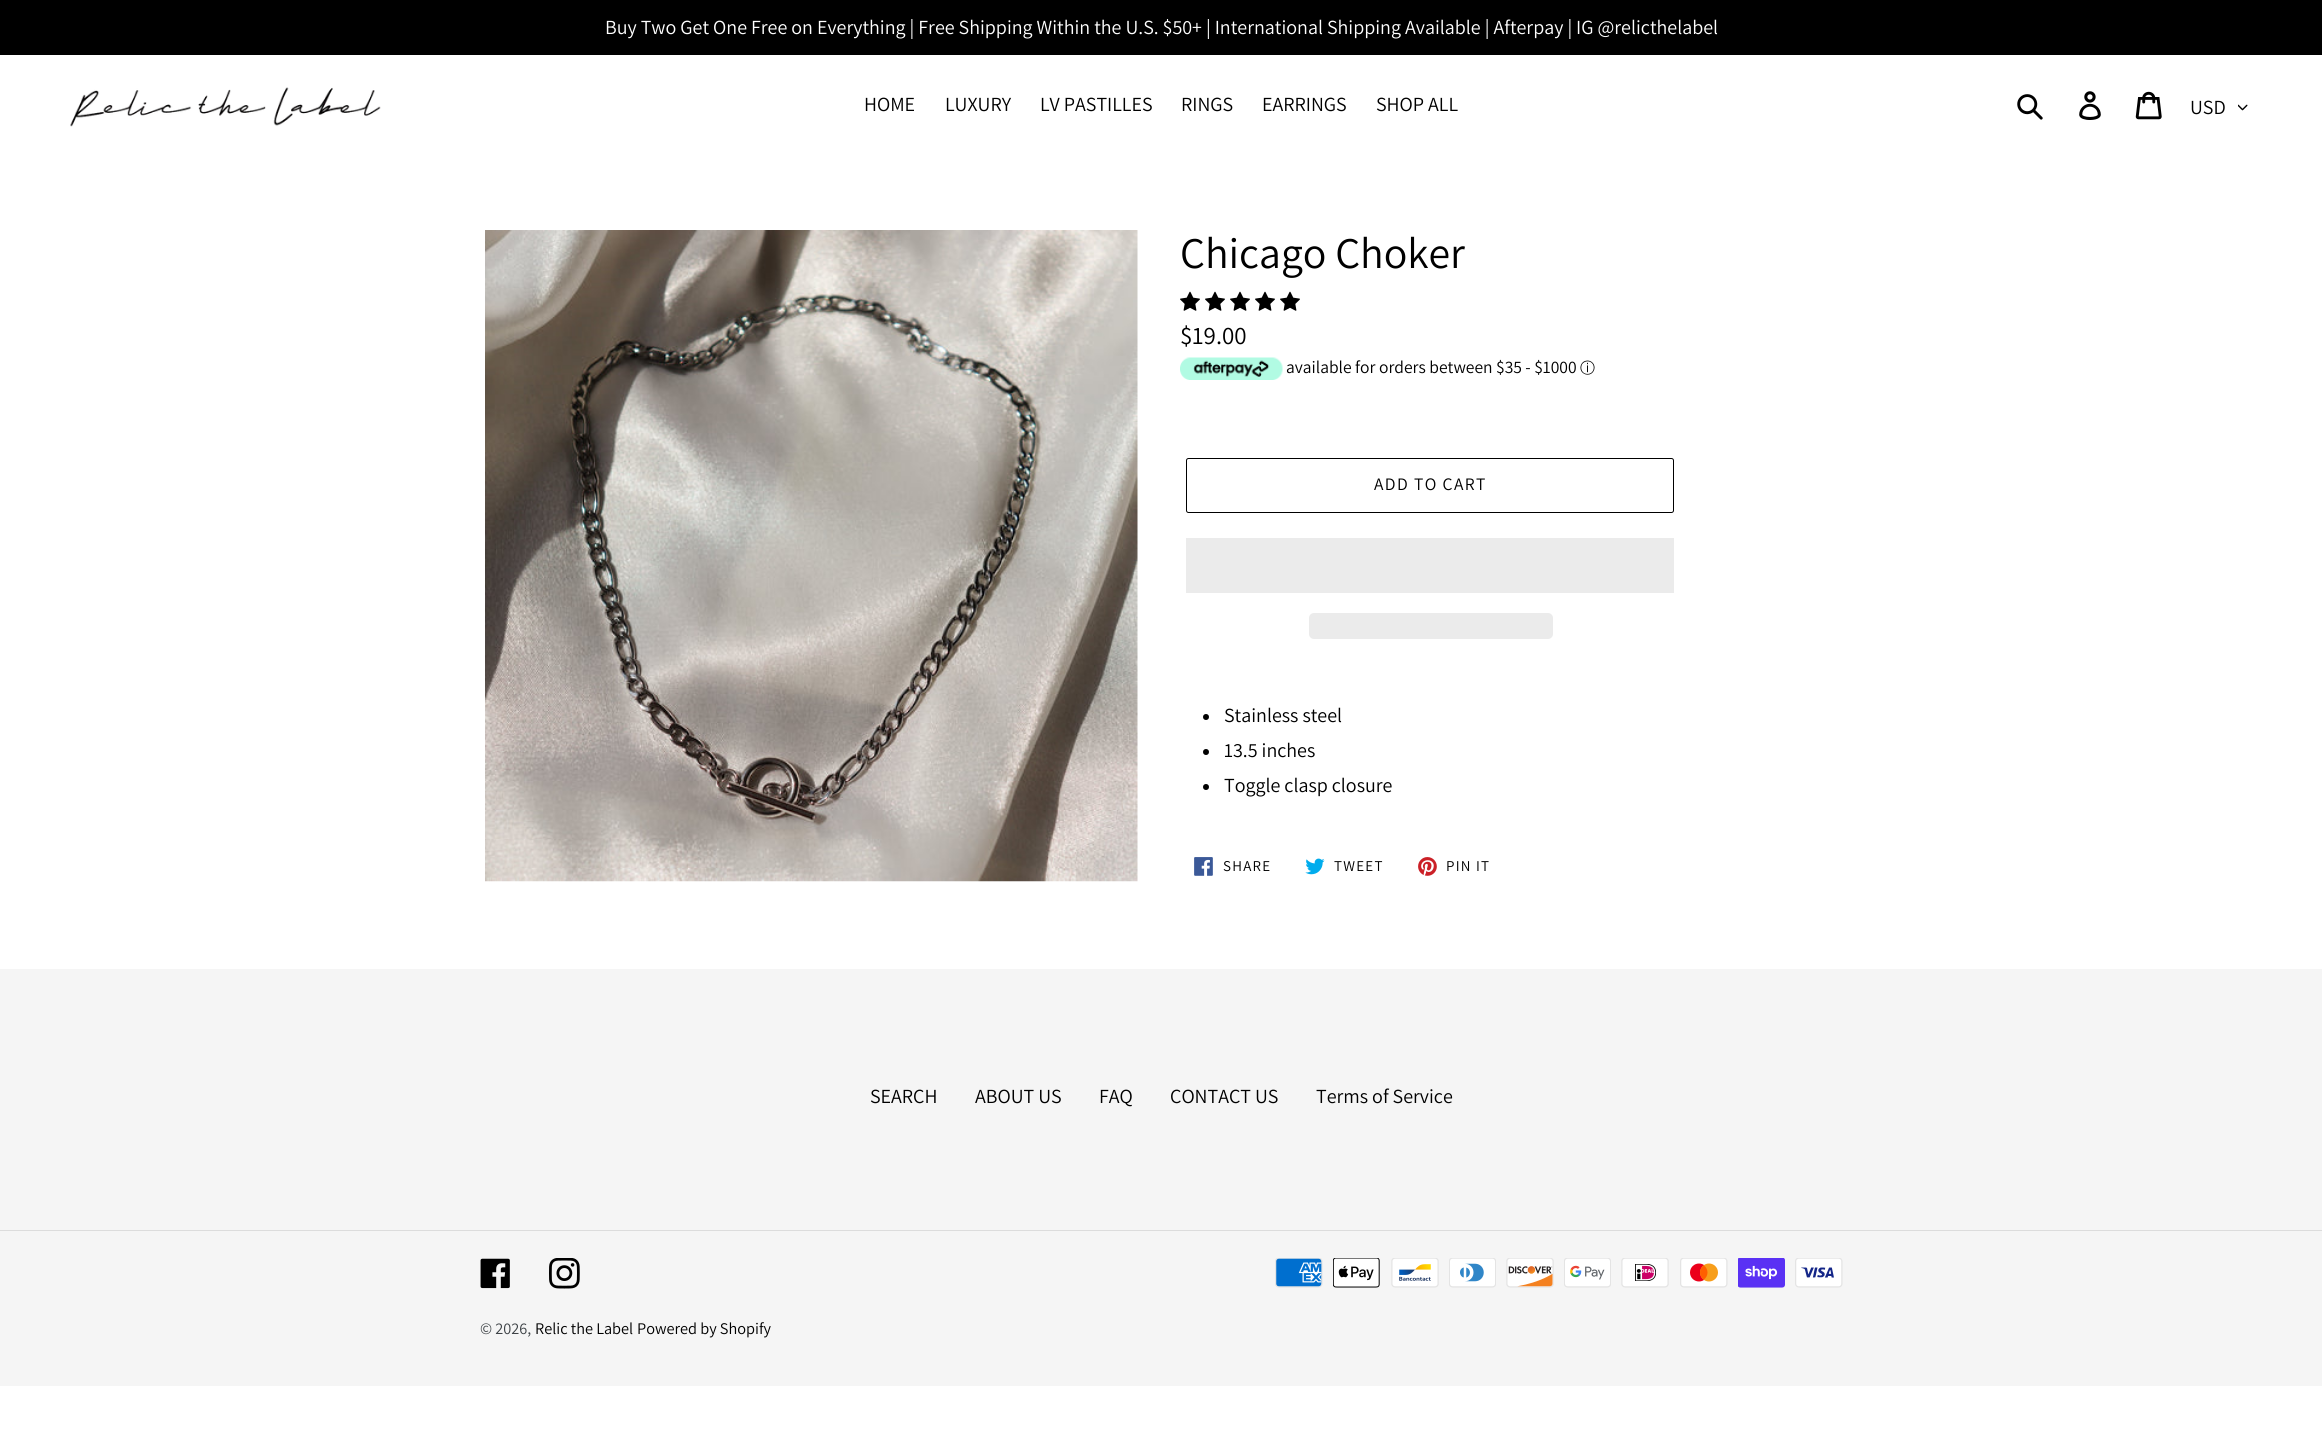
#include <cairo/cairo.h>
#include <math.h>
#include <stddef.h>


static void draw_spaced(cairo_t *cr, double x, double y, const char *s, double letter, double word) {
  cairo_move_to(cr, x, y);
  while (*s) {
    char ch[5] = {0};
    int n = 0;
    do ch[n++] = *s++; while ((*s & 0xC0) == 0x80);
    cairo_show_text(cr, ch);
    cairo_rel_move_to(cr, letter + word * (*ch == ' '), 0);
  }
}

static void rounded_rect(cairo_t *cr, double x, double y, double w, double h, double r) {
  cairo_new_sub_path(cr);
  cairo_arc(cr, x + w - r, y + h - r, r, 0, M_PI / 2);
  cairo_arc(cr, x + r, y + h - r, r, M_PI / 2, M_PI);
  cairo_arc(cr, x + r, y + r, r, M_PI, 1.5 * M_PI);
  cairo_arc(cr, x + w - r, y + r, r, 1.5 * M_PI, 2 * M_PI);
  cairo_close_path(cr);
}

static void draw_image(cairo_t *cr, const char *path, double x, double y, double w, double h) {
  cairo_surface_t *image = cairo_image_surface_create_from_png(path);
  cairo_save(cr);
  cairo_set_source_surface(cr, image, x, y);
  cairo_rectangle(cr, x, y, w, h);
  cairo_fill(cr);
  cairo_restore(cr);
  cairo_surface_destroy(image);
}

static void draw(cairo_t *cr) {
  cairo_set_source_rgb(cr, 1, 1, 1);
  cairo_paint(cr);
  cairo_set_source_rgb(cr, 0, 0, 0);
  cairo_rectangle(cr, 0, 0, 2322, 55);
  cairo_fill(cr);
  draw_image(cr, "images/1.png", 70, 87, 311, 40);
  draw_image(cr, "images/2.png", 2017, 94, 26, 26);
  draw_image(cr, "images/3.png", 2079, 91, 22, 29);
  draw_image(cr, "images/4.png", 2135, 91, 27, 29);
  draw_image(cr, "images/5.png", 2238, 104, 10, 7);
  draw_image(cr, "images/6.png", 485, 230, 653, 652);
  draw_image(cr, "images/7.png", 1180, 291, 20, 20);
  draw_image(cr, "images/7.png", 1205, 291, 20, 20);
  draw_image(cr, "images/7.png", 1230, 291, 20, 20);
  draw_image(cr, "images/7.png", 1255, 291, 20, 20);
  draw_image(cr, "images/7.png", 1280, 291, 20, 20);
  draw_image(cr, "images/8.png", 1180, 357, 103, 23);
  rounded_rect(cr, 1186.5, 458.5, 487, 54, 2);
  cairo_set_line_width(cr, 1);
  cairo_stroke(cr);
  cairo_set_source_rgb(cr, 235 / 255.0, 235 / 255.0, 235 / 255.0);
  cairo_rectangle(cr, 1186, 538, 488, 55);
  cairo_fill(cr);
  rounded_rect(cr, 1309, 613, 244, 26, 5);
  cairo_fill(cr);
  cairo_set_source_rgb(cr, 0, 0, 0);
  cairo_arc(cr, 1206, 717, 3, 0, 2 * M_PI);
  cairo_fill(cr);
  cairo_arc(cr, 1206, 752, 3, 0, 2 * M_PI);
  cairo_fill(cr);
  cairo_arc(cr, 1206, 787, 3, 0, 2 * M_PI);
  cairo_fill(cr);
  draw_image(cr, "images/9.png", 1194, 857, 19, 19);
  draw_image(cr, "images/10.png", 1305, 858, 20, 17);
  draw_image(cr, "images/11.png", 1418, 857, 19, 19);
  cairo_set_source_rgb(cr, 245 / 255.0, 245 / 255.0, 245 / 255.0);
  cairo_rectangle(cr, 0, 969, 2322, 417);
  cairo_fill(cr);
  cairo_set_source_rgb(cr, 220 / 255.0, 220 / 255.0, 220 / 255.0);
  cairo_rectangle(cr, 0, 1230, 2322, 1);
  cairo_fill(cr);
  draw_image(cr, "images/12.png", 480, 1258, 30, 31);
  draw_image(cr, "images/13.png", 549, 1258, 31, 31);
  draw_image(cr, "images/14.png", 1275, 1258, 48, 30);
  draw_image(cr, "images/15.png", 1333, 1258, 47, 30);
  draw_image(cr, "images/16.png", 1391, 1258, 48, 30);
  draw_image(cr, "images/17.png", 1449, 1258, 47, 30);
  draw_image(cr, "images/18.png", 1506, 1258, 48, 30);
  draw_image(cr, "images/19.png", 1564, 1258, 47, 30);
  draw_image(cr, "images/20.png", 1621, 1258, 48, 30);
  draw_image(cr, "images/21.png", 1680, 1258, 48, 30);
  draw_image(cr, "images/22.png", 1738, 1258, 47, 30);
  draw_image(cr, "images/23.png", 1795, 1258, 48, 30);
  cairo_select_font_face(cr, "Assistant", CAIRO_FONT_SLANT_NORMAL, CAIRO_FONT_WEIGHT_NORMAL);
  cairo_set_font_size(cr, 20);
  cairo_set_source_rgb(cr, 1, 1, 1);
  cairo_move_to(cr, 605, 34);
  cairo_show_text(cr, "Buy Two Get One Free on Everything | Free Shipping Within the U.S. $50+ | International Shipping Available | Afterpay | IG @relicthelabel");
  cairo_set_source_rgb(cr, 0, 0, 0);
  cairo_move_to(cr, 864, 111);
  cairo_show_text(cr, "HOME");
  cairo_move_to(cr, 945, 111);
  cairo_show_text(cr, "LUXURY");
  cairo_move_to(cr, 1040, 111);
  cairo_show_text(cr, "LV PASTILLES");
  cairo_move_to(cr, 1181, 111);
  cairo_show_text(cr, "RINGS");
  cairo_move_to(cr, 1262, 111);
  cairo_show_text(cr, "EARRINGS");
  cairo_move_to(cr, 1376, 111);
  cairo_show_text(cr, "SHOP ALL");
  cairo_move_to(cr, 2190, 114);
  cairo_show_text(cr, "USD");
  cairo_set_font_size(cr, 43.75);
  cairo_move_to(cr, 1180, 268);
  cairo_show_text(cr, "Chicago Choker");
  cairo_set_font_size(cr, 25);
  cairo_move_to(cr, 1180, 344);
  cairo_show_text(cr, "$19.00");
  cairo_set_font_size(cr, 17.5);
  cairo_move_to(cr, 1286, 373);
  cairo_show_text(cr, "available for orders between $35 - $1000");
  cairo_select_font_face(cr, "WenQuanYi Zen Hei Medium", CAIRO_FONT_SLANT_NORMAL, CAIRO_FONT_WEIGHT_NORMAL);
  cairo_set_font_size(cr, 15);
  cairo_move_to(cr, 1580, 373);
  cairo_show_text(cr, "ⓘ");
  cairo_select_font_face(cr, "Assistant", CAIRO_FONT_SLANT_NORMAL, CAIRO_FONT_WEIGHT_NORMAL);
  cairo_set_font_size(cr, 17.5);
  draw_spaced(cr, 1374, 490, "ADD TO CART", 1.4, 0);
  cairo_set_font_size(cr, 20);
  cairo_move_to(cr, 1224, 722);
  cairo_show_text(cr, "Stainless steel");
  cairo_move_to(cr, 1224, 757);
  cairo_show_text(cr, "13.5 inches");
  cairo_move_to(cr, 1224, 792);
  cairo_show_text(cr, "Toggle clasp closure");
  cairo_set_font_size(cr, 15);
  draw_spaced(cr, 1223, 871, "SHARE", 1.25, 0);
  draw_spaced(cr, 1334, 871, "TWEET", 1.25, 0);
  draw_spaced(cr, 1446, 871, "PIN IT", 1.25, 0);
  cairo_set_font_size(cr, 20);
  cairo_move_to(cr, 870, 1103);
  cairo_show_text(cr, "SEARCH");
  cairo_move_to(cr, 975, 1103);
  cairo_show_text(cr, "ABOUT US");
  cairo_move_to(cr, 1099, 1103);
  cairo_show_text(cr, "FAQ");
  cairo_move_to(cr, 1170, 1103);
  cairo_show_text(cr, "CONTACT US");
  cairo_move_to(cr, 1316, 1103);
  cairo_show_text(cr, "Terms of Service");
  cairo_set_font_size(cr, 16.25);
  cairo_set_source_rgb(cr, 61 / 255.0, 66 / 255.0, 70 / 255.0);
  cairo_move_to(cr, 480, 1334);
  cairo_show_text(cr, "© 2026,");
  cairo_set_source_rgb(cr, 0, 0, 0);
  cairo_move_to(cr, 535, 1334);
  cairo_show_text(cr, "Relic the Label");
  cairo_move_to(cr, 637, 1334);
  cairo_show_text(cr, "Powered by Shopify");
}

int main(void) {
  cairo_surface_t *surface = cairo_image_surface_create(CAIRO_FORMAT_RGB24, 2322, 1446);
  cairo_t *cr = cairo_create(surface);
  cairo_font_options_t *options = cairo_font_options_create();
  cairo_font_options_set_hint_metrics(options, CAIRO_HINT_METRICS_OFF);
  cairo_font_options_set_hint_style(options, CAIRO_HINT_STYLE_NONE);
  cairo_set_font_options(cr, options);
  cairo_set_miter_limit(cr, 4);
  draw(cr);
  cairo_surface_write_to_png(surface, "out.png");
  cairo_font_options_destroy(options);
  cairo_destroy(cr);
  cairo_surface_destroy(surface);
  return 0;
}
